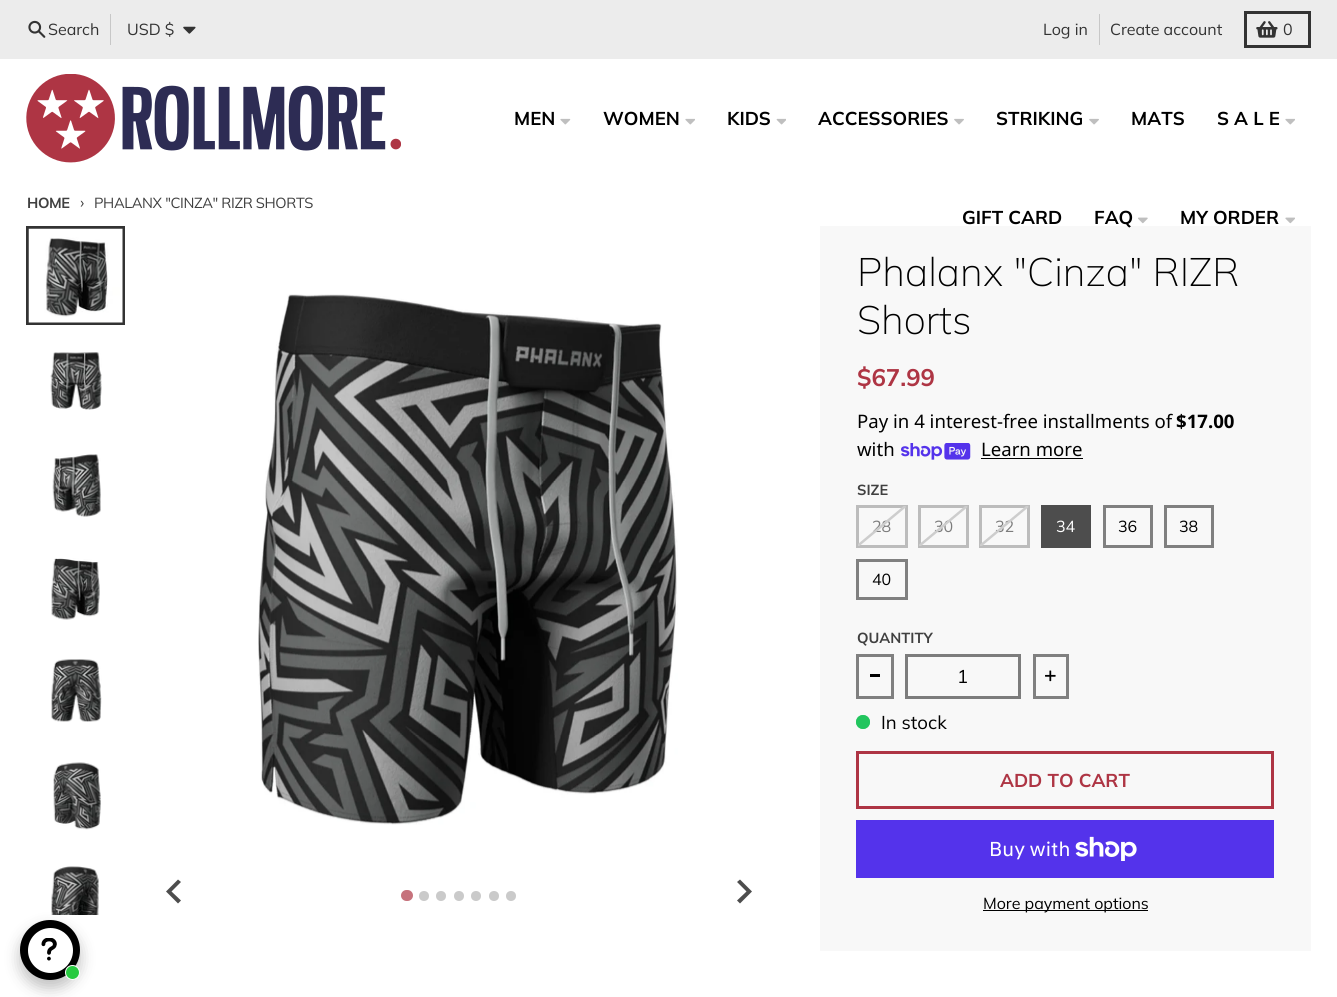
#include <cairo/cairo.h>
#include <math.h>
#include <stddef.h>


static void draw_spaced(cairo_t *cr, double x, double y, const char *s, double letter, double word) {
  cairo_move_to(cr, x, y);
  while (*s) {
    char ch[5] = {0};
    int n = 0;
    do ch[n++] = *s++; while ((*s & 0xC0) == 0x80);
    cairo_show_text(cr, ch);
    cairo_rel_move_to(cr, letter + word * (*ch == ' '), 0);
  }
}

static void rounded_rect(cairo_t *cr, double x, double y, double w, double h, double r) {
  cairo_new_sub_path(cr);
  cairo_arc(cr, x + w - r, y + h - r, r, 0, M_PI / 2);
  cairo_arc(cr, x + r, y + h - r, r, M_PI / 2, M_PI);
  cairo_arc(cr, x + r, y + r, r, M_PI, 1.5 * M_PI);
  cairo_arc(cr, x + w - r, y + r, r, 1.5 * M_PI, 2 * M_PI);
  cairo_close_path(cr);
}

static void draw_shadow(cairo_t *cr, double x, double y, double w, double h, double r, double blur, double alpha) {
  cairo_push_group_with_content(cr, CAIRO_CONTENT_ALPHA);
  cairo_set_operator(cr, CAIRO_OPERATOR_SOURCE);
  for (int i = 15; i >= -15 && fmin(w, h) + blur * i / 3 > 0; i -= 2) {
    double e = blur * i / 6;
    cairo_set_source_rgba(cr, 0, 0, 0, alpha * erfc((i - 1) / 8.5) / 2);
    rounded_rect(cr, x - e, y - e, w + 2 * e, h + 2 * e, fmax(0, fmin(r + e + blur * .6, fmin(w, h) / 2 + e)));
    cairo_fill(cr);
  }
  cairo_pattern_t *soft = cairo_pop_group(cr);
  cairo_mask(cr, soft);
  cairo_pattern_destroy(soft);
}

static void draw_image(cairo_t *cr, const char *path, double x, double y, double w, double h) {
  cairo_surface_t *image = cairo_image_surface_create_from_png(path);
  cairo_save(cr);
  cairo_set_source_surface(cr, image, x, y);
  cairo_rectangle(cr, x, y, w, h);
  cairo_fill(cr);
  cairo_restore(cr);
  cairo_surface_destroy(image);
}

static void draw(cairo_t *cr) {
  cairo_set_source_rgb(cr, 1, 1, 1);
  cairo_paint(cr);
  cairo_set_source_rgb(cr, 236 / 255.0, 236 / 255.0, 236 / 255.0);
  cairo_rectangle(cr, 0, 0, 1337, 59);
  cairo_fill(cr);
  draw_image(cr, "images/1.png", 28, 20, 18, 18);
  cairo_set_source_rgb(cr, 199 / 255.0, 199 / 255.0, 199 / 255.0);
  cairo_rectangle(cr, 110, 14, 1, 31);
  cairo_fill(cr);
  draw_image(cr, "images/2.png", 183, 26, 13, 8);
  cairo_rectangle(cr, 1099, 14, 1, 31);
  cairo_fill(cr);
  cairo_rectangle(cr, 1245.5, 12.5, 64, 34);
  cairo_set_source_rgb(cr, 51 / 255.0, 51 / 255.0, 51 / 255.0);
  cairo_set_line_width(cr, 3);
  cairo_stroke(cr);
  draw_image(cr, "images/3.png", 1256, 21, 22, 17);
  draw_image(cr, "images/4.png", 26, 74, 375, 89);
  draw_image(cr, "images/5.png", 560, 118, 11, 7);
  draw_image(cr, "images/6.png", 685, 118, 10, 7);
  draw_image(cr, "images/7.png", 776, 118, 10, 7);
  draw_image(cr, "images/8.png", 954, 118, 10, 7);
  draw_image(cr, "images/8.png", 1089, 118, 10, 7);
  draw_image(cr, "images/6.png", 1285, 118, 10, 7);
  draw_image(cr, "images/9.png", 1138, 217, 10, 7);
  draw_image(cr, "images/10.png", 1285, 217, 10, 7);
  cairo_rectangle(cr, 27.5, 227.5, 96, 96);
  cairo_stroke(cr);
  draw_image(cr, "images/11.png", 28, 228, 95, 95);
  draw_image(cr, "images/12.png", 50, 352, 52, 58);
  draw_image(cr, "images/13.png", 52, 454, 49, 63);
  draw_image(cr, "images/14.png", 51, 558, 49, 62);
  draw_image(cr, "images/15.png", 51, 659, 51, 63);
  draw_image(cr, "images/16.png", 53, 762, 48, 68);
  draw_image(cr, "images/17.png", 51, 866, 48, 49);
  draw_image(cr, "images/18.png", 258, 294, 420, 531);
  cairo_set_source_rgb(cr, 77 / 255.0, 77 / 255.0, 77 / 255.0);
  cairo_new_path(cr);
  cairo_move_to(cr, 178, 879.5);
  cairo_line_to(cr, 181, 882);
  cairo_line_to(cr, 171.5, 891.5);
  cairo_line_to(cr, 181, 900.5);
  cairo_line_to(cr, 178, 903.5);
  cairo_line_to(cr, 166, 891.5);
  cairo_close_path(cr);
  cairo_fill(cr);
  cairo_new_path(cr);
  cairo_move_to(cr, 740, 879.5);
  cairo_line_to(cr, 737, 882);
  cairo_line_to(cr, 746.5, 891.5);
  cairo_line_to(cr, 737, 900.5);
  cairo_line_to(cr, 740, 903.5);
  cairo_line_to(cr, 752, 891.5);
  cairo_close_path(cr);
  cairo_fill(cr);
  cairo_set_source_rgb(cr, 198 / 255.0, 114 / 255.0, 124 / 255.0);
  rounded_rect(cr, 401, 890, 12, 11, 5.5);
  cairo_fill(cr);
  cairo_set_source_rgb(cr, 202 / 255.0, 202 / 255.0, 202 / 255.0);
  cairo_arc(cr, 424, 896, 5, 0, 2 * M_PI);
  cairo_fill(cr);
  cairo_arc(cr, 441, 896, 5, 0, 2 * M_PI);
  cairo_fill(cr);
  cairo_arc(cr, 459, 896, 5, 0, 2 * M_PI);
  cairo_fill(cr);
  cairo_arc(cr, 476, 896, 5, 0, 2 * M_PI);
  cairo_fill(cr);
  cairo_arc(cr, 494, 896, 5, 0, 2 * M_PI);
  cairo_fill(cr);
  cairo_arc(cr, 511, 896, 5, 0, 2 * M_PI);
  cairo_fill(cr);
  cairo_set_source_rgb(cr, 248 / 255.0, 248 / 255.0, 248 / 255.0);
  cairo_rectangle(cr, 820, 226, 491, 725);
  cairo_fill(cr);
  draw_image(cr, "images/19.png", 901, 443, 70, 17);
  cairo_set_source_rgb(cr, 0, 0, 0);
  cairo_rectangle(cr, 981, 458, 102, 1);
  cairo_fill(cr);
  cairo_rectangle(cr, 857.5, 506.5, 49, 40);
  cairo_set_source_rgb(cr, 188 / 255.0, 188 / 255.0, 188 / 255.0);
  cairo_stroke(cr);
  cairo_rectangle(cr, 919.5, 506.5, 48, 40);
  cairo_stroke(cr);
  cairo_rectangle(cr, 980.5, 506.5, 48, 40);
  cairo_stroke(cr);
  cairo_set_source_rgb(cr, 77 / 255.0, 77 / 255.0, 77 / 255.0);
  cairo_rectangle(cr, 1041, 505, 50, 43);
  cairo_fill(cr);
  cairo_rectangle(cr, 1104.5, 506.5, 47, 40);
  cairo_set_source_rgb(cr, 128 / 255.0, 128 / 255.0, 128 / 255.0);
  cairo_stroke(cr);
  cairo_rectangle(cr, 1165.5, 506.5, 47, 40);
  cairo_stroke(cr);
  cairo_rectangle(cr, 857.5, 560.5, 49, 38);
  cairo_stroke(cr);
  cairo_rectangle(cr, 857.5, 655.5, 35, 42);
  cairo_stroke(cr);
  cairo_set_source_rgb(cr, 0, 0, 0);
  cairo_rectangle(cr, 870, 674, 10, 3);
  cairo_fill(cr);
  cairo_rectangle(cr, 906.5, 655.5, 113, 42);
  cairo_set_source_rgb(cr, 124 / 255.0, 124 / 255.0, 124 / 255.0);
  cairo_stroke(cr);
  cairo_rectangle(cr, 1034.5, 655.5, 33, 42);
  cairo_set_source_rgb(cr, 128 / 255.0, 128 / 255.0, 128 / 255.0);
  cairo_stroke(cr);
  draw_image(cr, "images/20.png", 1045, 670, 11, 12);
  cairo_set_source_rgb(cr, 34 / 255.0, 197 / 255.0, 94 / 255.0);
  cairo_arc(cr, 863, 722, 7, 0, 2 * M_PI);
  cairo_fill(cr);
  cairo_set_source_rgba(cr, 34 / 255.0, 197 / 255.0, 94 / 255.0, 0.75);
  cairo_arc(cr, 863, 722, 7, 0, 2 * M_PI);
  cairo_fill(cr);
  cairo_rectangle(cr, 857.5, 752.5, 415, 55);
  cairo_set_source_rgb(cr, 174 / 255.0, 53 / 255.0, 68 / 255.0);
  cairo_stroke(cr);
  cairo_set_source_rgb(cr, 84 / 255.0, 51 / 255.0, 235 / 255.0);
  cairo_rectangle(cr, 856, 820, 418, 58);
  cairo_fill(cr);
  draw_image(cr, "images/21.png", 1075, 836, 62, 25);
  cairo_set_source_rgb(cr, 0, 0, 0);
  cairo_rectangle(cr, 983, 910, 165, 1);
  cairo_fill(cr);
  cairo_set_source_rgb(cr, 0, 0, 0);
  draw_shadow(cr, 20, 928, 60, 60, 30, 7.5, 0.25);
  cairo_set_source_rgb(cr, 0, 0, 0);
  cairo_arc(cr, 50, 950, 30, 0, 2 * M_PI);
  cairo_fill(cr);
  cairo_set_source_rgb(cr, 1, 1, 1);
  cairo_arc(cr, 50.5, 950.5, 22.5, 0, 2 * M_PI);
  cairo_fill(cr);
  draw_image(cr, "images/22.png", 41, 938, 16, 23);
  cairo_set_source_rgb(cr, 39 / 255.0, 202 / 255.0, 64 / 255.0);
  cairo_arc(cr, 72.5, 972.5, 7, 0, 2 * M_PI);
  cairo_fill_preserve(cr);
  cairo_set_source_rgb(cr, 1, 1, 1);
  cairo_set_line_width(cr, 1);
  cairo_stroke(cr);
  cairo_select_font_face(cr, "Muli", CAIRO_FONT_SLANT_NORMAL, CAIRO_FONT_WEIGHT_NORMAL);
  cairo_set_font_size(cr, 16);
  cairo_set_source_rgb(cr, 51 / 255.0, 51 / 255.0, 51 / 255.0);
  cairo_move_to(cr, 48, 35);
  cairo_show_text(cr, "Search");
  cairo_move_to(cr, 127, 35);
  cairo_show_text(cr, "USD $");
  cairo_move_to(cr, 1043, 35);
  cairo_show_text(cr, "Log in");
  cairo_move_to(cr, 1110, 35);
  cairo_show_text(cr, "Create account");
  cairo_move_to(cr, 1283, 35);
  cairo_show_text(cr, "0");
  cairo_select_font_face(cr, "Muli", CAIRO_FONT_SLANT_NORMAL, CAIRO_FONT_WEIGHT_BOLD);
  cairo_set_font_size(cr, 18.6);
  cairo_set_source_rgb(cr, 0, 0, 0);
  cairo_move_to(cr, 514, 125);
  cairo_show_text(cr, "MEN");
  cairo_move_to(cr, 603, 125);
  cairo_show_text(cr, "WOMEN");
  cairo_move_to(cr, 727, 125);
  cairo_show_text(cr, "KIDS");
  cairo_move_to(cr, 818, 125);
  cairo_show_text(cr, "ACCESSORIES");
  cairo_move_to(cr, 996, 125);
  cairo_show_text(cr, "STRIKING");
  cairo_move_to(cr, 1131, 125);
  cairo_show_text(cr, "MATS");
  cairo_move_to(cr, 1217, 125);
  cairo_show_text(cr, "S A L E");
  cairo_move_to(cr, 962, 224);
  cairo_show_text(cr, "GIFT CARD");
  cairo_move_to(cr, 1094, 224);
  cairo_show_text(cr, "FAQ");
  cairo_move_to(cr, 1180, 224);
  cairo_show_text(cr, "MY ORDER");
  cairo_set_font_size(cr, 14.6);
  cairo_set_source_rgb(cr, 64 / 255.0, 64 / 255.0, 64 / 255.0);
  draw_spaced(cr, 27, 208, "HOME", -0.4, 0);
  cairo_select_font_face(cr, "Muli", CAIRO_FONT_SLANT_NORMAL, CAIRO_FONT_WEIGHT_NORMAL);
  cairo_set_font_size(cr, 16);
  draw_spaced(cr, 80, 208, "›", -0.4, 0);
  cairo_set_font_size(cr, 14.6);
  draw_spaced(cr, 94, 208, "PHALANX \"CINZA\" RIZR SHORTS", -0.4, 0);
  cairo_select_font_face(cr, "Muli ExtraLight", CAIRO_FONT_SLANT_NORMAL, CAIRO_FONT_WEIGHT_NORMAL);
  cairo_set_font_size(cr, 39.75);
  cairo_set_source_rgb(cr, 0, 0, 0);
  cairo_move_to(cr, 857, 286);
  cairo_show_text(cr, "Phalanx \"Cinza\" RIZR");
  cairo_move_to(cr, 857, 334);
  cairo_show_text(cr, "Shorts");
  cairo_select_font_face(cr, "Muli", CAIRO_FONT_SLANT_NORMAL, CAIRO_FONT_WEIGHT_BOLD);
  cairo_set_font_size(cr, 24);
  cairo_set_source_rgb(cr, 174 / 255.0, 53 / 255.0, 68 / 255.0);
  cairo_move_to(cr, 857, 386);
  cairo_show_text(cr, "$67.99");
  cairo_select_font_face(cr, "Noto Sans", CAIRO_FONT_SLANT_NORMAL, CAIRO_FONT_WEIGHT_NORMAL);
  cairo_set_font_size(cr, 18.6);
  cairo_set_source_rgb(cr, 0, 0, 0);
  cairo_move_to(cr, 857, 428);
  cairo_show_text(cr, "Pay in 4 interest-free installments of");
  cairo_select_font_face(cr, "Noto Sans", CAIRO_FONT_SLANT_NORMAL, CAIRO_FONT_WEIGHT_BOLD);
  cairo_move_to(cr, 1176, 428);
  cairo_show_text(cr, "$17.00");
  cairo_select_font_face(cr, "Noto Sans", CAIRO_FONT_SLANT_NORMAL, CAIRO_FONT_WEIGHT_NORMAL);
  cairo_move_to(cr, 857, 456);
  cairo_show_text(cr, "with");
  cairo_move_to(cr, 981, 456);
  cairo_show_text(cr, "Learn more");
  cairo_select_font_face(cr, "Muli", CAIRO_FONT_SLANT_NORMAL, CAIRO_FONT_WEIGHT_BOLD);
  cairo_set_font_size(cr, 14.6);
  cairo_set_source_rgb(cr, 64 / 255.0, 64 / 255.0, 64 / 255.0);
  cairo_move_to(cr, 857, 495);
  cairo_show_text(cr, "SIZE");
  cairo_select_font_face(cr, "Muli", CAIRO_FONT_SLANT_NORMAL, CAIRO_FONT_WEIGHT_NORMAL);
  cairo_set_font_size(cr, 16);
  cairo_set_source_rgb(cr, 124 / 255.0, 124 / 255.0, 124 / 255.0);
  cairo_move_to(cr, 872, 532);
  cairo_show_text(cr, "28");
  cairo_save(cr);
  cairo_rectangle(cr, 858, 506, 48, 40);
  cairo_clip(cr);
  cairo_new_path(cr);
  cairo_move_to(cr, 857.5, 546);
  cairo_line_to(cr, 905.5, 506);
  cairo_set_source_rgb(cr, 205 / 255.0, 205 / 255.0, 205 / 255.0);
  cairo_set_line_width(cr, 2.5);
  cairo_stroke(cr);
  cairo_restore(cr);
  cairo_move_to(cr, 934, 532);
  cairo_show_text(cr, "30");
  cairo_save(cr);
  cairo_rectangle(cr, 919, 506, 49, 40);
  cairo_clip(cr);
  cairo_new_path(cr);
  cairo_move_to(cr, 919, 546);
  cairo_line_to(cr, 967, 506);
  cairo_set_source_rgb(cr, 205 / 255.0, 205 / 255.0, 205 / 255.0);
  cairo_set_line_width(cr, 2.5);
  cairo_stroke(cr);
  cairo_restore(cr);
  cairo_move_to(cr, 995, 532);
  cairo_show_text(cr, "32");
  cairo_save(cr);
  cairo_rectangle(cr, 980, 506, 49, 40);
  cairo_clip(cr);
  cairo_new_path(cr);
  cairo_move_to(cr, 980, 546);
  cairo_line_to(cr, 1028, 506);
  cairo_set_source_rgb(cr, 205 / 255.0, 205 / 255.0, 205 / 255.0);
  cairo_set_line_width(cr, 2.5);
  cairo_stroke(cr);
  cairo_restore(cr);
  cairo_set_source_rgb(cr, 1, 1, 1);
  cairo_move_to(cr, 1056, 532);
  cairo_show_text(cr, "34");
  cairo_set_source_rgb(cr, 0, 0, 0);
  cairo_move_to(cr, 1118, 532);
  cairo_show_text(cr, "36");
  cairo_move_to(cr, 1179, 532);
  cairo_show_text(cr, "38");
  cairo_move_to(cr, 872, 585);
  cairo_show_text(cr, "40");
  cairo_select_font_face(cr, "Muli", CAIRO_FONT_SLANT_NORMAL, CAIRO_FONT_WEIGHT_BOLD);
  cairo_set_font_size(cr, 14.6);
  cairo_set_source_rgb(cr, 64 / 255.0, 64 / 255.0, 64 / 255.0);
  cairo_move_to(cr, 857, 643);
  cairo_show_text(cr, "QUANTITY");
  cairo_select_font_face(cr, "Muli", CAIRO_FONT_SLANT_NORMAL, CAIRO_FONT_WEIGHT_NORMAL);
  cairo_set_font_size(cr, 18.6);
  cairo_set_source_rgb(cr, 0, 0, 0);
  cairo_move_to(cr, 957, 683);
  cairo_show_text(cr, "1");
  cairo_move_to(cr, 881, 729);
  cairo_show_text(cr, "In stock");
  cairo_select_font_face(cr, "Muli", CAIRO_FONT_SLANT_NORMAL, CAIRO_FONT_WEIGHT_BOLD);
  cairo_set_source_rgb(cr, 174 / 255.0, 53 / 255.0, 68 / 255.0);
  cairo_move_to(cr, 1000, 787);
  cairo_show_text(cr, "ADD TO CART");
  cairo_select_font_face(cr, "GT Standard", CAIRO_FONT_SLANT_NORMAL, CAIRO_FONT_WEIGHT_NORMAL);
  cairo_set_font_size(cr, 20);
  cairo_set_source_rgb(cr, 1, 1, 1);
  cairo_move_to(cr, 989, 856);
  cairo_show_text(cr, "Buy with");
  cairo_select_font_face(cr, "Muli", CAIRO_FONT_SLANT_NORMAL, CAIRO_FONT_WEIGHT_NORMAL);
  cairo_set_font_size(cr, 16);
  cairo_set_source_rgb(cr, 0, 0, 0);
  cairo_move_to(cr, 983, 909);
  cairo_show_text(cr, "More payment options");
}

int main(void) {
  cairo_surface_t *surface = cairo_image_surface_create(CAIRO_FORMAT_RGB24, 1337, 997);
  cairo_t *cr = cairo_create(surface);
  cairo_font_options_t *options = cairo_font_options_create();
  cairo_font_options_set_hint_metrics(options, CAIRO_HINT_METRICS_OFF);
  cairo_font_options_set_hint_style(options, CAIRO_HINT_STYLE_NONE);
  cairo_set_font_options(cr, options);
  cairo_set_miter_limit(cr, 4);
  draw(cr);
  cairo_surface_write_to_png(surface, "out.png");
  cairo_font_options_destroy(options);
  cairo_destroy(cr);
  cairo_surface_destroy(surface);
  return 0;
}
